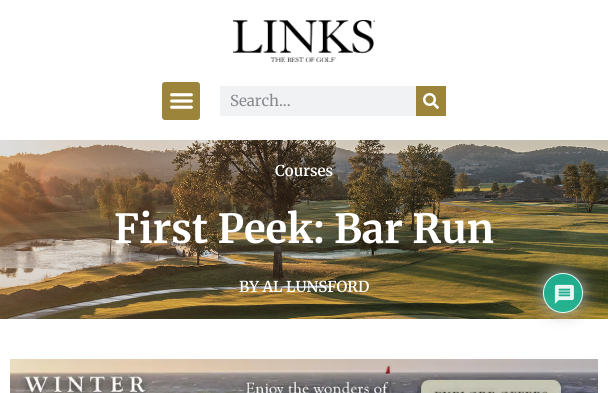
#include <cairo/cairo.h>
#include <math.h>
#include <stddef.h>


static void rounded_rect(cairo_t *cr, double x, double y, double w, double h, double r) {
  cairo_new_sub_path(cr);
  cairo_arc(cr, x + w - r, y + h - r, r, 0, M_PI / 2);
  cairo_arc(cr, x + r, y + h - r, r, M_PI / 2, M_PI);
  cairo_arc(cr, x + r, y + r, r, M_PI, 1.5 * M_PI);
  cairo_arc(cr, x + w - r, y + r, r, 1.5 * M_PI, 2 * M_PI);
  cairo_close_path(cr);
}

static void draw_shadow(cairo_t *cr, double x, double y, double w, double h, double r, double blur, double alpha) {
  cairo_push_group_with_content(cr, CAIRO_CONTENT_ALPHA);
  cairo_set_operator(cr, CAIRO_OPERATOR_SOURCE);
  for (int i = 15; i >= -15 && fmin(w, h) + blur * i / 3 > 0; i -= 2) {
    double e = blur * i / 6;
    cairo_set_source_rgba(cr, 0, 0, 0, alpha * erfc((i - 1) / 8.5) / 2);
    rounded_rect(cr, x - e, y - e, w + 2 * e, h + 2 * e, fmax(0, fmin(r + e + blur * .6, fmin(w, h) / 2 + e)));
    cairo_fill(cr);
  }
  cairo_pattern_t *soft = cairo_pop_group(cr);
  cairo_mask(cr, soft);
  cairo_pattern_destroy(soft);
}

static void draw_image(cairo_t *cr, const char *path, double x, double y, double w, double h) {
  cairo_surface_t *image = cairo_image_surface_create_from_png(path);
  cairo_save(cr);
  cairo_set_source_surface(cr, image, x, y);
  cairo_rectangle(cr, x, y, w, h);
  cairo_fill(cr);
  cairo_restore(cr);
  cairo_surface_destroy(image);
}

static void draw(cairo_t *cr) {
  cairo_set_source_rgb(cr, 1, 1, 1);
  cairo_paint(cr);
  draw_image(cr, "images/1.png", 233, 20, 142, 42);
  cairo_set_source_rgb(cr, 156 / 255.0, 132 / 255.0, 58 / 255.0);
  rounded_rect(cr, 162, 82, 38, 38, 3);
  cairo_fill(cr);
  draw_image(cr, "images/2.png", 170, 93, 23, 16);
  cairo_set_source_rgb(cr, 241 / 255.0, 242 / 255.0, 243 / 255.0);
  cairo_rectangle(cr, 220, 86, 196, 30);
  cairo_fill(cr);
  cairo_set_source_rgb(cr, 156 / 255.0, 132 / 255.0, 58 / 255.0);
  cairo_rectangle(cr, 416, 86, 30, 30);
  cairo_fill(cr);
  draw_image(cr, "images/3.png", 423, 93, 16, 16);
  draw_image(cr, "images/4.png", 0, 140, 608, 179);
  draw_image(cr, "images/5.png", 10, 359, 588, 34);
  cairo_save(cr);
  cairo_set_fill_rule(cr, CAIRO_FILL_RULE_EVEN_ODD);
  cairo_new_path(cr);
  cairo_move_to(cr, 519, 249);
  cairo_line_to(cr, 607, 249);
  cairo_line_to(cr, 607, 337);
  cairo_line_to(cr, 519, 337);
  cairo_close_path(cr);
  cairo_move_to(cr, 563, 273);
  cairo_curve_to(cr, 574, 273, 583, 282, 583, 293);
  cairo_curve_to(cr, 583, 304, 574, 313, 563, 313);
  cairo_curve_to(cr, 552, 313, 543, 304, 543, 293);
  cairo_curve_to(cr, 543, 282, 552, 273, 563, 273);
  cairo_close_path(cr);
  cairo_clip(cr);
  cairo_set_source_rgb(cr, 170 / 255.0, 170 / 255.0, 170 / 255.0);
  draw_shadow(cr, 543, 273, 40, 40, 20, 7.5, 0.9);
  cairo_restore(cr);
  cairo_set_source_rgba(cr, 29 / 255.0, 185 / 255.0, 154 / 255.0, 0.9);
  cairo_arc(cr, 563, 293, 20, 0, 2 * M_PI);
  cairo_fill(cr);
  cairo_arc(cr, 563, 293, 19.5, 0, 2 * M_PI);
  cairo_set_source_rgba(cr, 1, 1, 1, 0.9);
  cairo_set_line_width(cr, 1);
  cairo_stroke(cr);
  draw_image(cr, "images/6.png", 554, 284, 20, 20);
  cairo_select_font_face(cr, "Merriweather", CAIRO_FONT_SLANT_NORMAL, CAIRO_FONT_WEIGHT_NORMAL);
  cairo_set_font_size(cr, 15);
  cairo_set_source_rgb(cr, 134 / 255.0, 138 / 255.0, 142 / 255.0);
  cairo_move_to(cr, 230, 106);
  cairo_show_text(cr, "Search...");
  cairo_select_font_face(cr, "Merriweather SemiBold", CAIRO_FONT_SLANT_NORMAL, CAIRO_FONT_WEIGHT_NORMAL);
  cairo_set_source_rgb(cr, 1, 1, 1);
  cairo_move_to(cr, 275, 176);
  cairo_show_text(cr, "Courses");
  cairo_select_font_face(cr, "Merriweather", CAIRO_FONT_SLANT_NORMAL, CAIRO_FONT_WEIGHT_BOLD);
  cairo_set_font_size(cr, 40);
  cairo_move_to(cr, 114, 243);
  cairo_show_text(cr, "First Peek: Bar Run");
  cairo_select_font_face(cr, "Merriweather SemiBold", CAIRO_FONT_SLANT_NORMAL, CAIRO_FONT_WEIGHT_NORMAL);
  cairo_set_font_size(cr, 15);
  cairo_move_to(cr, 239, 292);
  cairo_show_text(cr, "BY AL LUNSFORD");
}

int main(void) {
  cairo_surface_t *surface = cairo_image_surface_create(CAIRO_FORMAT_RGB24, 608, 393);
  cairo_t *cr = cairo_create(surface);
  cairo_font_options_t *options = cairo_font_options_create();
  cairo_font_options_set_hint_metrics(options, CAIRO_HINT_METRICS_OFF);
  cairo_font_options_set_hint_style(options, CAIRO_HINT_STYLE_NONE);
  cairo_set_font_options(cr, options);
  cairo_set_miter_limit(cr, 4);
  draw(cr);
  cairo_surface_write_to_png(surface, "out.png");
  cairo_font_options_destroy(options);
  cairo_destroy(cr);
  cairo_surface_destroy(surface);
  return 0;
}
